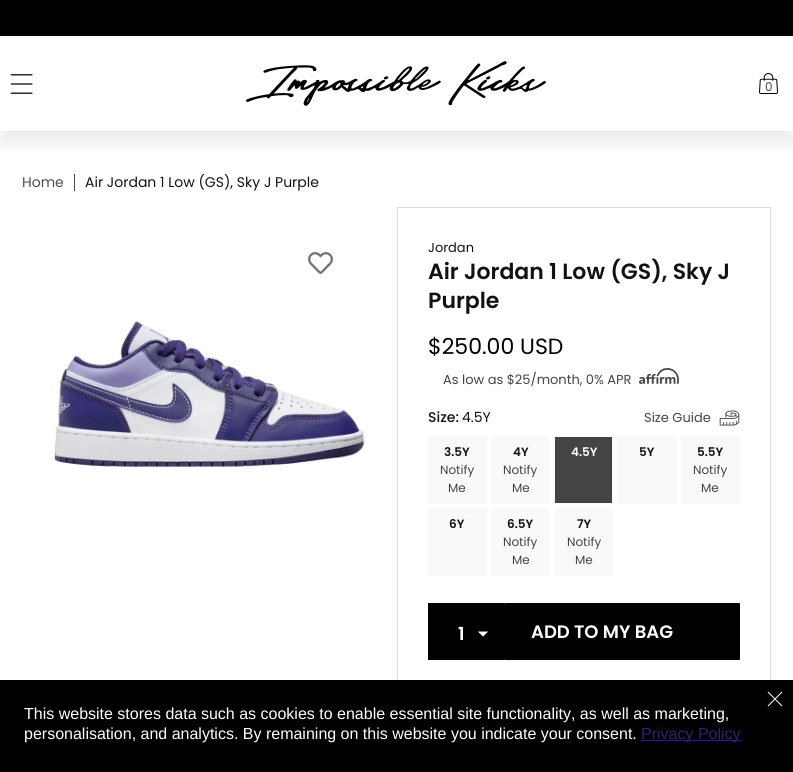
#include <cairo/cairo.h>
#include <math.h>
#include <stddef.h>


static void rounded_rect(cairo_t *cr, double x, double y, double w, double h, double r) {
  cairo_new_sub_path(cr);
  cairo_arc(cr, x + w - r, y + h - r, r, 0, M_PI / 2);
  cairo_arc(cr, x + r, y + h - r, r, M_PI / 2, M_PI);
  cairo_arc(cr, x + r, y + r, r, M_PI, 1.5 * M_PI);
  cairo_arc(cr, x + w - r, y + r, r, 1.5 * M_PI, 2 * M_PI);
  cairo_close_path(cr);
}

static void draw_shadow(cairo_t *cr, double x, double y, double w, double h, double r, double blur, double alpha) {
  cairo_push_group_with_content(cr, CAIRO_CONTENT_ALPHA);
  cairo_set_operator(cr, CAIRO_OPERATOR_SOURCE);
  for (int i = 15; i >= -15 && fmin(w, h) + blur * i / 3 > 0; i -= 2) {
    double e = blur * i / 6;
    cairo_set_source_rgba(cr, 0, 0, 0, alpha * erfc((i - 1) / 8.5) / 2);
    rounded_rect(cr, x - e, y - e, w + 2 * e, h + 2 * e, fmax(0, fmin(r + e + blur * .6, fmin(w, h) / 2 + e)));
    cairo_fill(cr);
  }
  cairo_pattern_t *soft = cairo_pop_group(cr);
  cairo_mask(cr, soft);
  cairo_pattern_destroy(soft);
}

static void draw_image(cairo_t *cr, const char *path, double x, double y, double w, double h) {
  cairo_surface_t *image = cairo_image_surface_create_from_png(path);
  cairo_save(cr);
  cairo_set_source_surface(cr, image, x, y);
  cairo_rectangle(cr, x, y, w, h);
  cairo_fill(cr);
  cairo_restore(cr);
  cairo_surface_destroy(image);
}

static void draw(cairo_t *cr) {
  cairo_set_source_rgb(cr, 1, 1, 1);
  cairo_paint(cr);
  cairo_save(cr);
  cairo_rectangle(cr, 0, 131, 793, 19);
  cairo_clip(cr);
  cairo_set_source_rgb(cr, 0, 0, 0);
  draw_shadow(cr, 0, 13, 793, 131, 0, 9.5, 0.08);
  cairo_restore(cr);
  cairo_set_source_rgb(cr, 0, 0, 0);
  cairo_rectangle(cr, 0, 0, 793, 36);
  cairo_fill(cr);
  draw_image(cr, "images/1.png", 10, 74, 23, 20);
  draw_image(cr, "images/2.png", 246, 61, 300, 45);
  draw_image(cr, "images/3.png", 759, 73, 19, 21);
  cairo_set_source_rgb(cr, 77 / 255.0, 77 / 255.0, 77 / 255.0);
  cairo_rectangle(cr, 74, 174, 1, 17);
  cairo_fill(cr);
  draw_image(cr, "images/4.png", 308, 252, 25, 22);
  draw_image(cr, "images/5.png", 54, 321, 311, 147);
  cairo_rectangle(cr, 397.5, 207.5, 373, 493);
  cairo_set_source_rgb(cr, 221 / 255.0, 221 / 255.0, 221 / 255.0);
  cairo_set_line_width(cr, 1);
  cairo_stroke(cr);
  draw_image(cr, "images/6.png", 639, 368, 40, 16);
  draw_image(cr, "images/7.png", 719, 410, 21, 16);
  cairo_set_source_rgb(cr, 249 / 255.0, 249 / 255.0, 249 / 255.0);
  cairo_rectangle(cr, 428, 436, 59, 68);
  cairo_fill(cr);
  cairo_rectangle(cr, 491, 436, 59, 68);
  cairo_fill(cr);
  cairo_set_source_rgb(cr, 68 / 255.0, 68 / 255.0, 68 / 255.0);
  cairo_rectangle(cr, 554.5, 436.5, 58, 67);
  cairo_fill_preserve(cr);
  cairo_set_source_rgb(cr, 249 / 255.0, 249 / 255.0, 249 / 255.0);
  cairo_stroke(cr);
  cairo_rectangle(cr, 617, 436, 60, 68);
  cairo_fill(cr);
  cairo_rectangle(cr, 681, 436, 59, 68);
  cairo_fill(cr);
  cairo_rectangle(cr, 428, 508, 59, 68);
  cairo_fill(cr);
  cairo_rectangle(cr, 491, 508, 59, 68);
  cairo_fill(cr);
  cairo_rectangle(cr, 554, 508, 59, 68);
  cairo_fill(cr);
  cairo_set_source_rgb(cr, 0, 0, 0);
  cairo_rectangle(cr, 428, 603, 76, 57);
  cairo_fill(cr);
  draw_image(cr, "images/8.png", 478, 631, 10, 6);
  rounded_rect(cr, 504, 603, 236, 57, 1);
  cairo_fill(cr);
  cairo_rectangle(cr, 0, 680, 793, 92);
  cairo_fill(cr);
  cairo_save(cr);
  rounded_rect(cr, 765, 689, 20, 20, 10);
  cairo_clip(cr);
  cairo_new_path(cr);
  cairo_move_to(cr, 767, 691);
  cairo_line_to(cr, 783, 707);
  cairo_move_to(cr, 767, 707);
  cairo_line_to(cr, 783, 691);
  cairo_set_source_rgb(cr, 1, 1, 1);
  cairo_stroke(cr);
  cairo_restore(cr);
  cairo_set_source_rgb(cr, 41 / 255.0, 36 / 255.0, 106 / 255.0);
  cairo_rectangle(cr, 641, 740, 100, 1);
  cairo_fill(cr);
  cairo_select_font_face(cr, "Poppins", CAIRO_FONT_SLANT_NORMAL, CAIRO_FONT_WEIGHT_NORMAL);
  cairo_set_font_size(cr, 12);
  cairo_set_source_rgb(cr, 68 / 255.0, 68 / 255.0, 68 / 255.0);
  cairo_move_to(cr, 765, 91);
  cairo_show_text(cr, "0");
  cairo_set_font_size(cr, 14);
  cairo_set_source_rgb(cr, 77 / 255.0, 77 / 255.0, 77 / 255.0);
  cairo_move_to(cr, 22, 187);
  cairo_show_text(cr, "Home");
  cairo_set_source_rgb(cr, 18 / 255.0, 18 / 255.0, 18 / 255.0);
  cairo_move_to(cr, 85, 187);
  cairo_show_text(cr, "Air Jordan 1 Low (GS), Sky J Purple");
  cairo_set_font_size(cr, 13);
  cairo_move_to(cr, 428, 252);
  cairo_show_text(cr, "Jordan");
  cairo_select_font_face(cr, "Poppins SemiBold", CAIRO_FONT_SLANT_NORMAL, CAIRO_FONT_WEIGHT_NORMAL);
  cairo_set_font_size(cr, 22);
  cairo_move_to(cr, 428, 279);
  cairo_show_text(cr, "Air Jordan 1 Low (GS), Sky J");
  cairo_move_to(cr, 428, 308);
  cairo_show_text(cr, "Purple");
  cairo_select_font_face(cr, "Poppins", CAIRO_FONT_SLANT_NORMAL, CAIRO_FONT_WEIGHT_NORMAL);
  cairo_set_source_rgb(cr, 0, 0, 0);
  cairo_move_to(cr, 428, 354);
  cairo_show_text(cr, "$250.00 USD");
  cairo_set_font_size(cr, 13);
  cairo_set_source_rgb(cr, 68 / 255.0, 68 / 255.0, 68 / 255.0);
  cairo_move_to(cr, 443, 384);
  cairo_show_text(cr, "As low as $25/month, 0% APR");
  cairo_select_font_face(cr, "Poppins Medium", CAIRO_FONT_SLANT_NORMAL, CAIRO_FONT_WEIGHT_NORMAL);
  cairo_set_font_size(cr, 14);
  cairo_set_source_rgb(cr, 18 / 255.0, 18 / 255.0, 18 / 255.0);
  cairo_move_to(cr, 428, 422);
  cairo_show_text(cr, "Size:");
  cairo_select_font_face(cr, "Poppins", CAIRO_FONT_SLANT_NORMAL, CAIRO_FONT_WEIGHT_NORMAL);
  cairo_move_to(cr, 462, 422);
  cairo_show_text(cr, "4.5Y");
  cairo_set_font_size(cr, 13);
  cairo_set_source_rgb(cr, 68 / 255.0, 68 / 255.0, 68 / 255.0);
  cairo_move_to(cr, 644, 422);
  cairo_show_text(cr, "Size Guide");
  cairo_select_font_face(cr, "Poppins SemiBold", CAIRO_FONT_SLANT_NORMAL, CAIRO_FONT_WEIGHT_NORMAL);
  cairo_set_font_size(cr, 12);
  cairo_set_source_rgb(cr, 18 / 255.0, 18 / 255.0, 18 / 255.0);
  cairo_move_to(cr, 444, 456);
  cairo_show_text(cr, "3.5Y");
  cairo_select_font_face(cr, "Poppins", CAIRO_FONT_SLANT_NORMAL, CAIRO_FONT_WEIGHT_NORMAL);
  cairo_set_source_rgb(cr, 68 / 255.0, 68 / 255.0, 68 / 255.0);
  cairo_move_to(cr, 440, 474);
  cairo_show_text(cr, "Notify");
  cairo_move_to(cr, 448, 492);
  cairo_show_text(cr, "Me");
  cairo_select_font_face(cr, "Poppins SemiBold", CAIRO_FONT_SLANT_NORMAL, CAIRO_FONT_WEIGHT_NORMAL);
  cairo_set_source_rgb(cr, 18 / 255.0, 18 / 255.0, 18 / 255.0);
  cairo_move_to(cr, 513, 456);
  cairo_show_text(cr, "4Y");
  cairo_select_font_face(cr, "Poppins", CAIRO_FONT_SLANT_NORMAL, CAIRO_FONT_WEIGHT_NORMAL);
  cairo_set_source_rgb(cr, 68 / 255.0, 68 / 255.0, 68 / 255.0);
  cairo_move_to(cr, 503, 474);
  cairo_show_text(cr, "Notify");
  cairo_move_to(cr, 512, 492);
  cairo_show_text(cr, "Me");
  cairo_select_font_face(cr, "Poppins SemiBold", CAIRO_FONT_SLANT_NORMAL, CAIRO_FONT_WEIGHT_NORMAL);
  cairo_set_source_rgb(cr, 1, 1, 1);
  cairo_move_to(cr, 571, 456);
  cairo_show_text(cr, "4.5Y");
  cairo_set_source_rgb(cr, 18 / 255.0, 18 / 255.0, 18 / 255.0);
  cairo_move_to(cr, 639, 456);
  cairo_show_text(cr, "5Y");
  cairo_move_to(cr, 697, 456);
  cairo_show_text(cr, "5.5Y");
  cairo_select_font_face(cr, "Poppins", CAIRO_FONT_SLANT_NORMAL, CAIRO_FONT_WEIGHT_NORMAL);
  cairo_set_source_rgb(cr, 68 / 255.0, 68 / 255.0, 68 / 255.0);
  cairo_move_to(cr, 693, 474);
  cairo_show_text(cr, "Notify");
  cairo_move_to(cr, 701, 492);
  cairo_show_text(cr, "Me");
  cairo_select_font_face(cr, "Poppins SemiBold", CAIRO_FONT_SLANT_NORMAL, CAIRO_FONT_WEIGHT_NORMAL);
  cairo_set_source_rgb(cr, 18 / 255.0, 18 / 255.0, 18 / 255.0);
  cairo_move_to(cr, 449, 528);
  cairo_show_text(cr, "6Y");
  cairo_move_to(cr, 507, 528);
  cairo_show_text(cr, "6.5Y");
  cairo_select_font_face(cr, "Poppins", CAIRO_FONT_SLANT_NORMAL, CAIRO_FONT_WEIGHT_NORMAL);
  cairo_set_source_rgb(cr, 68 / 255.0, 68 / 255.0, 68 / 255.0);
  cairo_move_to(cr, 503, 546);
  cairo_show_text(cr, "Notify");
  cairo_move_to(cr, 512, 564);
  cairo_show_text(cr, "Me");
  cairo_select_font_face(cr, "Poppins SemiBold", CAIRO_FONT_SLANT_NORMAL, CAIRO_FONT_WEIGHT_NORMAL);
  cairo_set_source_rgb(cr, 18 / 255.0, 18 / 255.0, 18 / 255.0);
  cairo_move_to(cr, 577, 528);
  cairo_show_text(cr, "7Y");
  cairo_select_font_face(cr, "Poppins", CAIRO_FONT_SLANT_NORMAL, CAIRO_FONT_WEIGHT_NORMAL);
  cairo_set_source_rgb(cr, 68 / 255.0, 68 / 255.0, 68 / 255.0);
  cairo_move_to(cr, 567, 546);
  cairo_show_text(cr, "Notify");
  cairo_move_to(cr, 575, 564);
  cairo_show_text(cr, "Me");
  cairo_select_font_face(cr, "Poppins SemiBold", CAIRO_FONT_SLANT_NORMAL, CAIRO_FONT_WEIGHT_NORMAL);
  cairo_set_font_size(cr, 18);
  cairo_set_source_rgb(cr, 1, 1, 1);
  cairo_move_to(cr, 458, 640);
  cairo_show_text(cr, "1");
  cairo_move_to(cr, 531, 638);
  cairo_show_text(cr, "ADD TO MY BAG");
  cairo_select_font_face(cr, "Liberation Sans", CAIRO_FONT_SLANT_NORMAL, CAIRO_FONT_WEIGHT_NORMAL);
  cairo_set_font_size(cr, 16);
  cairo_move_to(cr, 24, 719);
  cairo_show_text(cr, "This website stores data such as cookies to enable essential site functionality, as well as marketing,");
  cairo_move_to(cr, 24, 739);
  cairo_show_text(cr, "personalisation, and analytics. By remaining on this website you indicate your consent.");
  cairo_set_source_rgb(cr, 41 / 255.0, 36 / 255.0, 106 / 255.0);
  cairo_move_to(cr, 641, 739);
  cairo_show_text(cr, "Privacy Policy");
}

int main(void) {
  cairo_surface_t *surface = cairo_image_surface_create(CAIRO_FORMAT_RGB24, 793, 772);
  cairo_t *cr = cairo_create(surface);
  cairo_font_options_t *options = cairo_font_options_create();
  cairo_font_options_set_hint_metrics(options, CAIRO_HINT_METRICS_OFF);
  cairo_font_options_set_hint_style(options, CAIRO_HINT_STYLE_NONE);
  cairo_set_font_options(cr, options);
  cairo_set_miter_limit(cr, 4);
  draw(cr);
  cairo_surface_write_to_png(surface, "out.png");
  cairo_font_options_destroy(options);
  cairo_destroy(cr);
  cairo_surface_destroy(surface);
  return 0;
}
